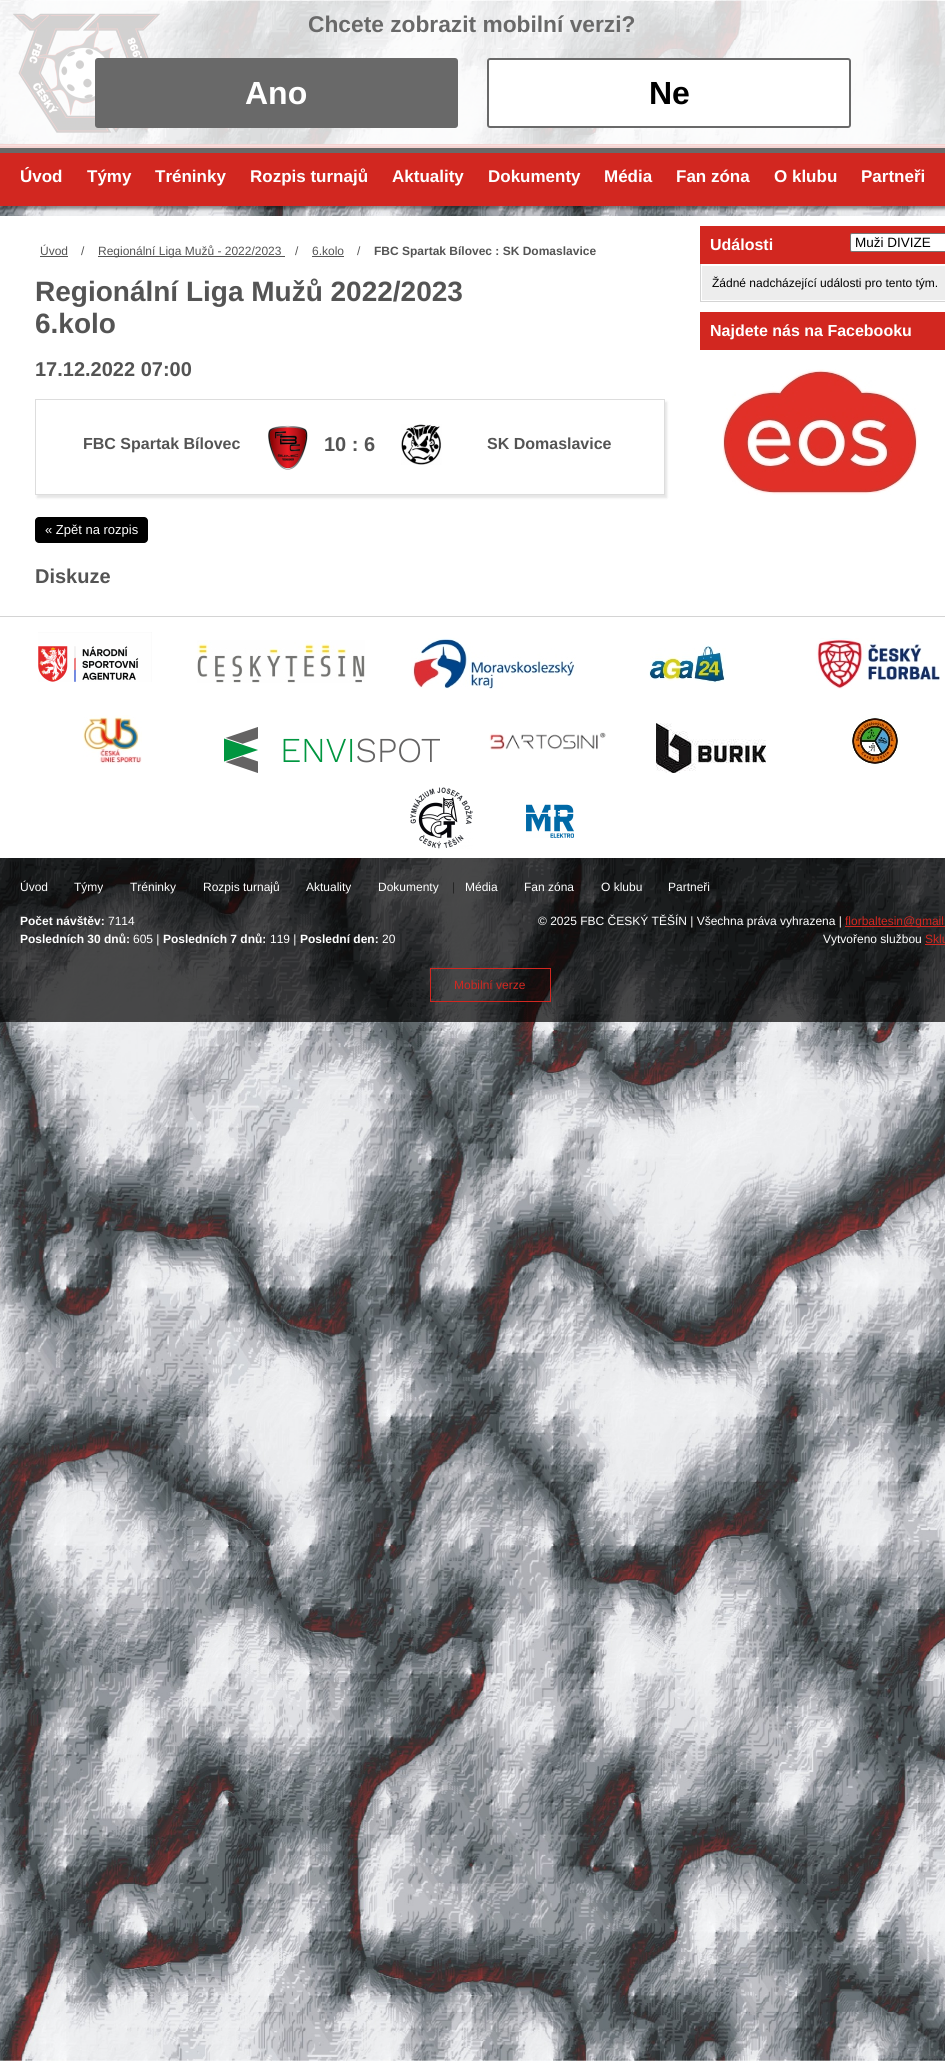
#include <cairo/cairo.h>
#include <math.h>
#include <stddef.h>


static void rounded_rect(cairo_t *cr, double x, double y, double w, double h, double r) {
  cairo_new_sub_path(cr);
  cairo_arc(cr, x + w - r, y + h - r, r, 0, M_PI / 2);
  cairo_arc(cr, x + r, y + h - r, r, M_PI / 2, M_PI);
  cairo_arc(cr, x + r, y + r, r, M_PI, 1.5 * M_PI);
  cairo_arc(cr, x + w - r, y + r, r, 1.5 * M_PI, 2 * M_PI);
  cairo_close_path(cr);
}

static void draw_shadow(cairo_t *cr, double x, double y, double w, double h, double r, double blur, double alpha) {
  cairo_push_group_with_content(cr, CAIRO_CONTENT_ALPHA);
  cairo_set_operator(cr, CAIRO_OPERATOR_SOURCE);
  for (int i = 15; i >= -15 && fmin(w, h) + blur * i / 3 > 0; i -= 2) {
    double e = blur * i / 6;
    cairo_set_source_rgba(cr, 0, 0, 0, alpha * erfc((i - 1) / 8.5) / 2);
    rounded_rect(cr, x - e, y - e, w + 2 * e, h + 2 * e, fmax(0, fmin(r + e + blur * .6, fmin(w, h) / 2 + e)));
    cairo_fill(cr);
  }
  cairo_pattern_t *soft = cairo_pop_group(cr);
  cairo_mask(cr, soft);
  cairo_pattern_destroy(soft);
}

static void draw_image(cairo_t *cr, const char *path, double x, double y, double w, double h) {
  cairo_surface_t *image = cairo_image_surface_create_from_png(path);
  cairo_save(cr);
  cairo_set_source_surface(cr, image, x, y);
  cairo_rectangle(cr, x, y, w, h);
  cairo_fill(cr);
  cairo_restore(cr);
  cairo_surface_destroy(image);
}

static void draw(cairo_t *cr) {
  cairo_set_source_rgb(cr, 1, 1, 1);
  cairo_paint(cr);
  draw_image(cr, "images/1.png", 0, 0, 945, 2061);
  draw_image(cr, "images/2.png", 12, 13, 149, 120);
  cairo_set_source_rgb(cr, 0, 0, 0);
  draw_shadow(cr, 0, 147, 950, 62, 0, 1.5, 0.4);
  cairo_set_source_rgb(cr, 210 / 255.0, 39 / 255.0, 32 / 255.0);
  cairo_rectangle(cr, 0, 144, 945, 62);
  cairo_fill(cr);
  cairo_set_source_rgb(cr, 221 / 255.0, 93 / 255.0, 88 / 255.0);
  cairo_rectangle(cr, 0, 145, 945, 1);
  cairo_fill(cr);
  cairo_set_source_rgba(cr, 1, 1, 1, 0.8);
  cairo_rectangle(cr, 0, 0, 945, 148);
  cairo_fill(cr);
  cairo_set_source_rgb(cr, 105 / 255.0, 105 / 255.0, 105 / 255.0);
  cairo_rectangle(cr, 0, 148, 945, 5);
  cairo_fill(cr);
  rounded_rect(cr, 96, 59, 361, 68, 2);
  cairo_fill_preserve(cr);
  cairo_stroke(cr);
  cairo_set_source_rgb(cr, 1, 1, 1);
  rounded_rect(cr, 488, 59, 362, 68, 2);
  cairo_fill_preserve(cr);
  cairo_set_source_rgb(cr, 105 / 255.0, 105 / 255.0, 105 / 255.0);
  cairo_stroke(cr);
  cairo_set_source_rgb(cr, 1, 1, 1);
  cairo_rectangle(cr, 0, 216, 945, 400);
  cairo_fill(cr);
  cairo_set_source_rgb(cr, 84 / 255.0, 84 / 255.0, 84 / 255.0);
  cairo_rectangle(cr, 40, 256, 28, 1);
  cairo_fill(cr);
  cairo_rectangle(cr, 98, 256, 187, 1);
  cairo_fill(cr);
  cairo_rectangle(cr, 312, 256, 32, 1);
  cairo_fill(cr);
  cairo_save(cr);
  cairo_set_fill_rule(cr, CAIRO_FILL_RULE_EVEN_ODD);
  cairo_new_path(cr);
  cairo_move_to(cr, 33, 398);
  cairo_line_to(cr, 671, 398);
  cairo_line_to(cr, 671, 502);
  cairo_line_to(cr, 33, 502);
  cairo_close_path(cr);
  cairo_move_to(cr, 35, 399);
  cairo_line_to(cr, 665, 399);
  cairo_line_to(cr, 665, 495);
  cairo_line_to(cr, 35, 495);
  cairo_close_path(cr);
  cairo_clip(cr);
  cairo_set_source_rgb(cr, 0, 0, 0);
  draw_shadow(cr, 37, 402, 630, 96, 0, 1, 0.1);
  cairo_restore(cr);
  cairo_rectangle(cr, 35.5, 399.5, 629, 95);
  cairo_set_source_rgb(cr, 221 / 255.0, 221 / 255.0, 221 / 255.0);
  cairo_set_line_width(cr, 1);
  cairo_stroke(cr);
  draw_image(cr, "images/3.png", 268, 425, 40, 45);
  draw_image(cr, "images/4.png", 401, 424, 41, 41);
  cairo_set_source_rgb(cr, 0, 0, 0);
  rounded_rect(cr, 35, 517, 113, 26, 4);
  cairo_fill(cr);
  cairo_set_source_rgb(cr, 210 / 255.0, 39 / 255.0, 32 / 255.0);
  cairo_rectangle(cr, 700, 226, 245, 38);
  cairo_fill(cr);
  cairo_set_source_rgb(cr, 1, 1, 1);
  rounded_rect(cr, 850.5, 233.5, 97, 18, 1.5);
  cairo_fill_preserve(cr);
  cairo_set_source_rgb(cr, 118 / 255.0, 118 / 255.0, 118 / 255.0);
  cairo_stroke(cr);
  cairo_set_source_rgb(cr, 212 / 255.0, 212 / 255.0, 212 / 255.0);
  cairo_rectangle(cr, 700, 301, 245, 1);
  cairo_fill(cr);
  cairo_rectangle(cr, 700, 264, 1, 38);
  cairo_fill(cr);
  cairo_set_source_rgb(cr, 237 / 255.0, 237 / 255.0, 237 / 255.0);
  cairo_rectangle(cr, 702, 266, 243, 34);
  cairo_fill(cr);
  cairo_set_source_rgb(cr, 210 / 255.0, 39 / 255.0, 32 / 255.0);
  cairo_rectangle(cr, 700, 312, 245, 38);
  cairo_fill(cr);
  draw_image(cr, "images/5.png", 723, 369, 195, 126);
  cairo_set_source_rgb(cr, 1, 1, 1);
  cairo_rectangle(cr, 0, 617, 945, 241);
  cairo_fill(cr);
  cairo_set_source_rgb(cr, 212 / 255.0, 212 / 255.0, 212 / 255.0);
  cairo_rectangle(cr, 0, 616, 945, 1);
  cairo_fill(cr);
  draw_image(cr, "images/6.png", 38, 632, 114, 50);
  draw_image(cr, "images/7.png", 197, 640, 168, 43);
  draw_image(cr, "images/8.png", 411, 638, 166, 51);
  draw_image(cr, "images/9.png", 649, 645, 77, 39);
  draw_image(cr, "images/10.png", 816, 638, 124, 51);
  draw_image(cr, "images/11.png", 83, 715, 59, 50);
  draw_image(cr, "images/12.png", 224, 727, 216, 46);
  draw_image(cr, "images/13.png", 489, 732, 117, 18);
  draw_image(cr, "images/14.png", 656, 723, 110, 50);
  draw_image(cr, "images/15.png", 850, 715, 50, 52);
  draw_image(cr, "images/16.png", 410, 787, 63, 62);
  draw_image(cr, "images/17.png", 526, 804, 48, 34);
  cairo_set_source_rgba(cr, 0, 0, 0, 0.7);
  cairo_rectangle(cr, 0, 858, 945, 164);
  cairo_fill(cr);
  cairo_set_source_rgb(cr, 210 / 255.0, 39 / 255.0, 32 / 255.0);
  cairo_rectangle(cr, 845, 926, 100, 1);
  cairo_fill(cr);
  cairo_rectangle(cr, 925, 944, 20, 1);
  cairo_fill(cr);
  cairo_rectangle(cr, 430.5, 968.5, 120, 33);
  cairo_stroke(cr);
  cairo_select_font_face(cr, "Liberation Sans", CAIRO_FONT_SLANT_NORMAL, CAIRO_FONT_WEIGHT_BOLD);
  cairo_set_font_size(cr, 22.75);
  cairo_set_source_rgb(cr, 105 / 255.0, 105 / 255.0, 105 / 255.0);
  cairo_move_to(cr, 308, 32);
  cairo_show_text(cr, "Chcete zobrazit mobilní verzi?");
  cairo_set_font_size(cr, 32);
  cairo_set_source_rgb(cr, 1, 1, 1);
  cairo_move_to(cr, 245, 104);
  cairo_show_text(cr, "Ano");
  cairo_set_source_rgb(cr, 0, 0, 0);
  cairo_move_to(cr, 649, 104);
  cairo_show_text(cr, "Ne");
  cairo_set_font_size(cr, 17);
  cairo_set_source_rgb(cr, 1, 1, 1);
  cairo_move_to(cr, 20, 182);
  cairo_show_text(cr, "Úvod");
  cairo_move_to(cr, 87, 182);
  cairo_show_text(cr, "Týmy");
  cairo_move_to(cr, 155, 182);
  cairo_show_text(cr, "Tréninky");
  cairo_move_to(cr, 250, 182);
  cairo_show_text(cr, "Rozpis turnajů");
  cairo_move_to(cr, 392, 182);
  cairo_show_text(cr, "Aktuality");
  cairo_move_to(cr, 488, 182);
  cairo_show_text(cr, "Dokumenty");
  cairo_move_to(cr, 604, 182);
  cairo_show_text(cr, "Média");
  cairo_move_to(cr, 676, 182);
  cairo_show_text(cr, "Fan zóna");
  cairo_move_to(cr, 774, 182);
  cairo_show_text(cr, "O klubu");
  cairo_move_to(cr, 861, 182);
  cairo_show_text(cr, "Partneři");
  cairo_select_font_face(cr, "Liberation Sans", CAIRO_FONT_SLANT_NORMAL, CAIRO_FONT_WEIGHT_NORMAL);
  cairo_set_font_size(cr, 12);
  cairo_set_source_rgb(cr, 84 / 255.0, 84 / 255.0, 84 / 255.0);
  cairo_move_to(cr, 40, 255);
  cairo_show_text(cr, "Úvod");
  cairo_move_to(cr, 81, 255);
  cairo_show_text(cr, "/");
  cairo_move_to(cr, 98, 255);
  cairo_show_text(cr, "Regionální Liga Mužů - 2022/2023");
  cairo_move_to(cr, 295, 255);
  cairo_show_text(cr, "/");
  cairo_move_to(cr, 312, 255);
  cairo_show_text(cr, "6.kolo");
  cairo_move_to(cr, 357, 255);
  cairo_show_text(cr, "/");
  cairo_select_font_face(cr, "Liberation Sans", CAIRO_FONT_SLANT_NORMAL, CAIRO_FONT_WEIGHT_BOLD);
  cairo_move_to(cr, 374, 255);
  cairo_show_text(cr, "FBC Spartak Bílovec : SK Domaslavice");
  cairo_set_font_size(cr, 28);
  cairo_move_to(cr, 35, 301);
  cairo_show_text(cr, "Regionální Liga Mužů 2022/2023");
  cairo_move_to(cr, 35, 333);
  cairo_show_text(cr, "6.kolo");
  cairo_set_font_size(cr, 20);
  cairo_move_to(cr, 35, 376);
  cairo_show_text(cr, "17.12.2022 07:00");
  cairo_set_font_size(cr, 16);
  cairo_move_to(cr, 83, 449);
  cairo_show_text(cr, "FBC Spartak Bílovec");
  cairo_set_font_size(cr, 20);
  cairo_move_to(cr, 324, 451);
  cairo_show_text(cr, "10 : 6");
  cairo_set_font_size(cr, 16);
  cairo_move_to(cr, 487, 449);
  cairo_show_text(cr, "SK Domaslavice");
  cairo_select_font_face(cr, "Liberation Sans", CAIRO_FONT_SLANT_NORMAL, CAIRO_FONT_WEIGHT_NORMAL);
  cairo_set_font_size(cr, 13);
  cairo_set_source_rgb(cr, 1, 1, 1);
  cairo_move_to(cr, 45, 534);
  cairo_show_text(cr, "« Zpět na rozpis");
  cairo_select_font_face(cr, "Liberation Sans", CAIRO_FONT_SLANT_NORMAL, CAIRO_FONT_WEIGHT_BOLD);
  cairo_set_font_size(cr, 20);
  cairo_set_source_rgb(cr, 84 / 255.0, 84 / 255.0, 84 / 255.0);
  cairo_move_to(cr, 35, 583);
  cairo_show_text(cr, "Diskuze");
  cairo_set_font_size(cr, 16);
  cairo_set_source_rgb(cr, 1, 1, 1);
  cairo_move_to(cr, 710, 250);
  cairo_show_text(cr, "Události");
  cairo_select_font_face(cr, "Liberation Sans", CAIRO_FONT_SLANT_NORMAL, CAIRO_FONT_WEIGHT_NORMAL);
  cairo_set_font_size(cr, 13.5);
  cairo_set_source_rgb(cr, 0, 0, 0);
  cairo_move_to(cr, 855, 247);
  cairo_show_text(cr, "Muži DIVIZE");
  cairo_set_font_size(cr, 12);
  cairo_move_to(cr, 712, 287);
  cairo_show_text(cr, "Žádné nadcházející události pro tento tým.");
  cairo_select_font_face(cr, "Liberation Sans", CAIRO_FONT_SLANT_NORMAL, CAIRO_FONT_WEIGHT_BOLD);
  cairo_set_font_size(cr, 16);
  cairo_set_source_rgb(cr, 1, 1, 1);
  cairo_move_to(cr, 710, 336);
  cairo_show_text(cr, "Najdete nás na Facebooku");
  cairo_select_font_face(cr, "Liberation Sans", CAIRO_FONT_SLANT_NORMAL, CAIRO_FONT_WEIGHT_NORMAL);
  cairo_set_font_size(cr, 12);
  cairo_move_to(cr, 20, 891);
  cairo_show_text(cr, "Úvod");
  cairo_move_to(cr, 74, 891);
  cairo_show_text(cr, "Týmy");
  cairo_move_to(cr, 130, 891);
  cairo_show_text(cr, "Tréninky");
  cairo_move_to(cr, 203, 891);
  cairo_show_text(cr, "Rozpis turnajů");
  cairo_move_to(cr, 306, 891);
  cairo_show_text(cr, "Aktuality");
  cairo_move_to(cr, 378, 891);
  cairo_show_text(cr, "Dokumenty");
  cairo_set_source_rgb(cr, 35 / 255.0, 35 / 255.0, 35 / 255.0);
  cairo_move_to(cr, 452, 891);
  cairo_show_text(cr, "|");
  cairo_set_source_rgb(cr, 1, 1, 1);
  cairo_move_to(cr, 465, 891);
  cairo_show_text(cr, "Média");
  cairo_move_to(cr, 524, 891);
  cairo_show_text(cr, "Fan zóna");
  cairo_move_to(cr, 601, 891);
  cairo_show_text(cr, "O klubu");
  cairo_move_to(cr, 668, 891);
  cairo_show_text(cr, "Partneři");
  cairo_select_font_face(cr, "Liberation Sans", CAIRO_FONT_SLANT_NORMAL, CAIRO_FONT_WEIGHT_BOLD);
  cairo_move_to(cr, 20, 925);
  cairo_show_text(cr, "Počet návštěv:");
  cairo_select_font_face(cr, "Liberation Sans", CAIRO_FONT_SLANT_NORMAL, CAIRO_FONT_WEIGHT_NORMAL);
  cairo_move_to(cr, 108, 925);
  cairo_show_text(cr, "7114");
  cairo_select_font_face(cr, "Liberation Sans", CAIRO_FONT_SLANT_NORMAL, CAIRO_FONT_WEIGHT_BOLD);
  cairo_move_to(cr, 20, 943);
  cairo_show_text(cr, "Posledních 30 dnů:");
  cairo_select_font_face(cr, "Liberation Sans", CAIRO_FONT_SLANT_NORMAL, CAIRO_FONT_WEIGHT_NORMAL);
  cairo_move_to(cr, 133, 943);
  cairo_show_text(cr, "605 |");
  cairo_select_font_face(cr, "Liberation Sans", CAIRO_FONT_SLANT_NORMAL, CAIRO_FONT_WEIGHT_BOLD);
  cairo_move_to(cr, 163, 943);
  cairo_show_text(cr, "Posledních 7 dnů:");
  cairo_select_font_face(cr, "Liberation Sans", CAIRO_FONT_SLANT_NORMAL, CAIRO_FONT_WEIGHT_NORMAL);
  cairo_move_to(cr, 270, 943);
  cairo_show_text(cr, "119 |");
  cairo_select_font_face(cr, "Liberation Sans", CAIRO_FONT_SLANT_NORMAL, CAIRO_FONT_WEIGHT_BOLD);
  cairo_move_to(cr, 300, 943);
  cairo_show_text(cr, "Poslední den:");
  cairo_select_font_face(cr, "Liberation Sans", CAIRO_FONT_SLANT_NORMAL, CAIRO_FONT_WEIGHT_NORMAL);
  cairo_move_to(cr, 382, 943);
  cairo_show_text(cr, "20");
  cairo_move_to(cr, 538, 925);
  cairo_show_text(cr, "© 2025 FBC ČESKÝ TĚŠÍN | Všechna práva vyhrazena |");
  cairo_set_source_rgb(cr, 210 / 255.0, 39 / 255.0, 32 / 255.0);
  cairo_move_to(cr, 845, 925);
  cairo_show_text(cr, "florbaltesin@gmail");
  cairo_set_source_rgb(cr, 1, 1, 1);
  cairo_move_to(cr, 823, 943);
  cairo_show_text(cr, "Vytvořeno službou");
  cairo_set_source_rgb(cr, 210 / 255.0, 39 / 255.0, 32 / 255.0);
  cairo_move_to(cr, 925, 943);
  cairo_show_text(cr, "Sklu");
  cairo_move_to(cr, 454, 989);
  cairo_show_text(cr, "Mobilní verze");
}

int main(void) {
  cairo_surface_t *surface = cairo_image_surface_create(CAIRO_FORMAT_RGB24, 945, 2061);
  cairo_t *cr = cairo_create(surface);
  cairo_font_options_t *options = cairo_font_options_create();
  cairo_font_options_set_hint_metrics(options, CAIRO_HINT_METRICS_OFF);
  cairo_font_options_set_hint_style(options, CAIRO_HINT_STYLE_NONE);
  cairo_set_font_options(cr, options);
  cairo_set_miter_limit(cr, 4);
  draw(cr);
  cairo_surface_write_to_png(surface, "out.png");
  cairo_font_options_destroy(options);
  cairo_destroy(cr);
  cairo_surface_destroy(surface);
  return 0;
}
